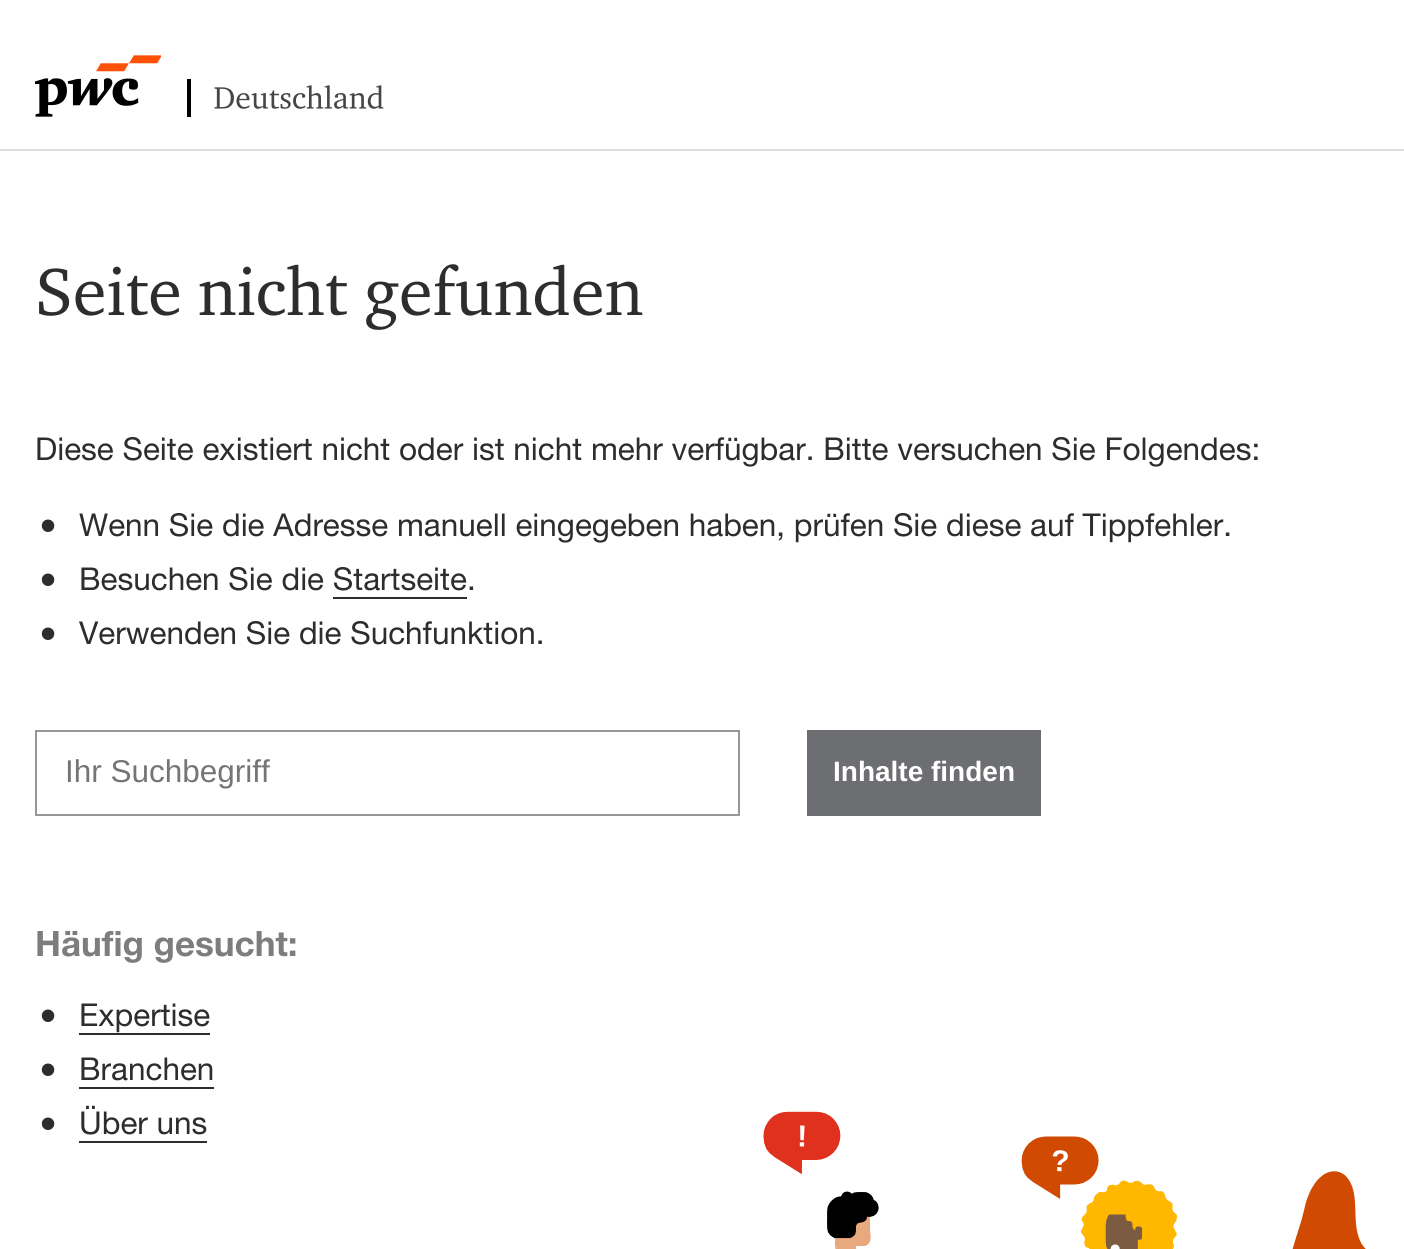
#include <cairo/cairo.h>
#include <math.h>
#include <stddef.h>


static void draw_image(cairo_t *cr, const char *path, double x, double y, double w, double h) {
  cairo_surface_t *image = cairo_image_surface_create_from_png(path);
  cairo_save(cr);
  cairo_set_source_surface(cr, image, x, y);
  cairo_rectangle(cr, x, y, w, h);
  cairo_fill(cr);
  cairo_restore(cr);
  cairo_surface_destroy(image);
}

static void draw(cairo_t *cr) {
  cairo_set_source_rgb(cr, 1, 1, 1);
  cairo_paint(cr);
  cairo_set_source_rgb(cr, 222 / 255.0, 222 / 255.0, 222 / 255.0);
  cairo_rectangle(cr, 0, 149, 1404, 2);
  cairo_fill(cr);
  draw_image(cr, "images/1.png", 35, 55, 126, 62);
  cairo_set_source_rgb(cr, 0, 0, 0);
  cairo_rectangle(cr, 187, 79, 4, 38);
  cairo_fill(cr);
  draw_image(cr, "images/2.png", 214, 85, 170, 24);
  draw_image(cr, "images/3.png", 763, 1111, 603, 138);
  draw_image(cr, "images/4.png", 39, 264, 604, 66);
  cairo_set_source_rgb(cr, 45 / 255.0, 45 / 255.0, 45 / 255.0);
  cairo_rectangle(cr, 333, 597, 134, 2);
  cairo_fill(cr);
  cairo_rectangle(cr, 36, 731, 703, 84);
  cairo_set_source_rgb(cr, 151 / 255.0, 151 / 255.0, 151 / 255.0);
  cairo_stroke(cr);
  cairo_set_source_rgb(cr, 109 / 255.0, 110 / 255.0, 113 / 255.0);
  cairo_rectangle(cr, 807, 730, 234, 86);
  cairo_fill(cr);
  cairo_set_source_rgb(cr, 45 / 255.0, 45 / 255.0, 45 / 255.0);
  cairo_rectangle(cr, 79, 1033, 131, 2);
  cairo_fill(cr);
  cairo_rectangle(cr, 79, 1087, 135, 2);
  cairo_fill(cr);
  cairo_rectangle(cr, 79, 1141, 128, 2);
  cairo_fill(cr);
  cairo_select_font_face(cr, "Helvetica Neue", CAIRO_FONT_SLANT_NORMAL, CAIRO_FONT_WEIGHT_NORMAL);
  cairo_set_font_size(cr, 31.5);
  cairo_move_to(cr, 35, 460);
  cairo_show_text(cr, "Diese Seite existiert nicht oder ist nicht mehr verfügbar. Bitte versuchen Sie Folgendes:");
  cairo_select_font_face(cr, "Liberation Sans", CAIRO_FONT_SLANT_NORMAL, CAIRO_FONT_WEIGHT_NORMAL);
  cairo_set_font_size(cr, 46);
  cairo_move_to(cr, 40, 541);
  cairo_show_text(cr, "•");
  cairo_select_font_face(cr, "Helvetica Neue", CAIRO_FONT_SLANT_NORMAL, CAIRO_FONT_WEIGHT_NORMAL);
  cairo_set_font_size(cr, 31.5);
  cairo_move_to(cr, 79, 536);
  cairo_show_text(cr, "Wenn Sie die Adresse manuell eingegeben haben, prüfen Sie diese auf Tippfehler.");
  cairo_select_font_face(cr, "Liberation Sans", CAIRO_FONT_SLANT_NORMAL, CAIRO_FONT_WEIGHT_NORMAL);
  cairo_set_font_size(cr, 46);
  cairo_move_to(cr, 40, 595);
  cairo_show_text(cr, "•");
  cairo_select_font_face(cr, "Helvetica Neue", CAIRO_FONT_SLANT_NORMAL, CAIRO_FONT_WEIGHT_NORMAL);
  cairo_set_font_size(cr, 31.5);
  cairo_move_to(cr, 79, 590);
  cairo_show_text(cr, "Besuchen Sie die Startseite");
  cairo_move_to(cr, 467, 590);
  cairo_show_text(cr, ".");
  cairo_select_font_face(cr, "Liberation Sans", CAIRO_FONT_SLANT_NORMAL, CAIRO_FONT_WEIGHT_NORMAL);
  cairo_set_font_size(cr, 46);
  cairo_move_to(cr, 40, 649);
  cairo_show_text(cr, "•");
  cairo_select_font_face(cr, "Helvetica Neue", CAIRO_FONT_SLANT_NORMAL, CAIRO_FONT_WEIGHT_NORMAL);
  cairo_set_font_size(cr, 31.5);
  cairo_move_to(cr, 79, 644);
  cairo_show_text(cr, "Verwenden Sie die Suchfunktion.");
  cairo_select_font_face(cr, "Liberation Sans", CAIRO_FONT_SLANT_NORMAL, CAIRO_FONT_WEIGHT_NORMAL);
  cairo_set_source_rgb(cr, 117 / 255.0, 117 / 255.0, 117 / 255.0);
  cairo_move_to(cr, 65, 782);
  cairo_show_text(cr, "Ihr Suchbegriff");
  cairo_select_font_face(cr, "Liberation Sans", CAIRO_FONT_SLANT_NORMAL, CAIRO_FONT_WEIGHT_BOLD);
  cairo_set_font_size(cr, 28);
  cairo_set_source_rgb(cr, 1, 1, 1);
  cairo_move_to(cr, 833, 781);
  cairo_show_text(cr, "Inhalte finden");
  cairo_select_font_face(cr, "Helvetica Neue", CAIRO_FONT_SLANT_NORMAL, CAIRO_FONT_WEIGHT_BOLD);
  cairo_set_font_size(cr, 35);
  cairo_set_source_rgb(cr, 125 / 255.0, 125 / 255.0, 125 / 255.0);
  cairo_move_to(cr, 35, 956);
  cairo_show_text(cr, "Häufig gesucht:");
  cairo_select_font_face(cr, "Liberation Sans", CAIRO_FONT_SLANT_NORMAL, CAIRO_FONT_WEIGHT_NORMAL);
  cairo_set_font_size(cr, 46);
  cairo_set_source_rgb(cr, 45 / 255.0, 45 / 255.0, 45 / 255.0);
  cairo_move_to(cr, 40, 1031);
  cairo_show_text(cr, "•");
  cairo_select_font_face(cr, "Helvetica Neue", CAIRO_FONT_SLANT_NORMAL, CAIRO_FONT_WEIGHT_NORMAL);
  cairo_set_font_size(cr, 31.5);
  cairo_move_to(cr, 79, 1026);
  cairo_show_text(cr, "Expertise");
  cairo_select_font_face(cr, "Liberation Sans", CAIRO_FONT_SLANT_NORMAL, CAIRO_FONT_WEIGHT_NORMAL);
  cairo_set_font_size(cr, 46);
  cairo_move_to(cr, 40, 1085);
  cairo_show_text(cr, "•");
  cairo_select_font_face(cr, "Helvetica Neue", CAIRO_FONT_SLANT_NORMAL, CAIRO_FONT_WEIGHT_NORMAL);
  cairo_set_font_size(cr, 31.5);
  cairo_move_to(cr, 79, 1080);
  cairo_show_text(cr, "Branchen");
  cairo_select_font_face(cr, "Liberation Sans", CAIRO_FONT_SLANT_NORMAL, CAIRO_FONT_WEIGHT_NORMAL);
  cairo_set_font_size(cr, 46);
  cairo_move_to(cr, 40, 1139);
  cairo_show_text(cr, "•");
  cairo_select_font_face(cr, "Helvetica Neue", CAIRO_FONT_SLANT_NORMAL, CAIRO_FONT_WEIGHT_NORMAL);
  cairo_set_font_size(cr, 31.5);
  cairo_move_to(cr, 79, 1134);
  cairo_show_text(cr, "Über uns");
}

int main(void) {
  cairo_surface_t *surface = cairo_image_surface_create(CAIRO_FORMAT_RGB24, 1404, 1249);
  cairo_t *cr = cairo_create(surface);
  cairo_font_options_t *options = cairo_font_options_create();
  cairo_font_options_set_hint_metrics(options, CAIRO_HINT_METRICS_OFF);
  cairo_font_options_set_hint_style(options, CAIRO_HINT_STYLE_NONE);
  cairo_set_font_options(cr, options);
  cairo_set_miter_limit(cr, 4);
  draw(cr);
  cairo_surface_write_to_png(surface, "out.png");
  cairo_font_options_destroy(options);
  cairo_destroy(cr);
  cairo_surface_destroy(surface);
  return 0;
}
